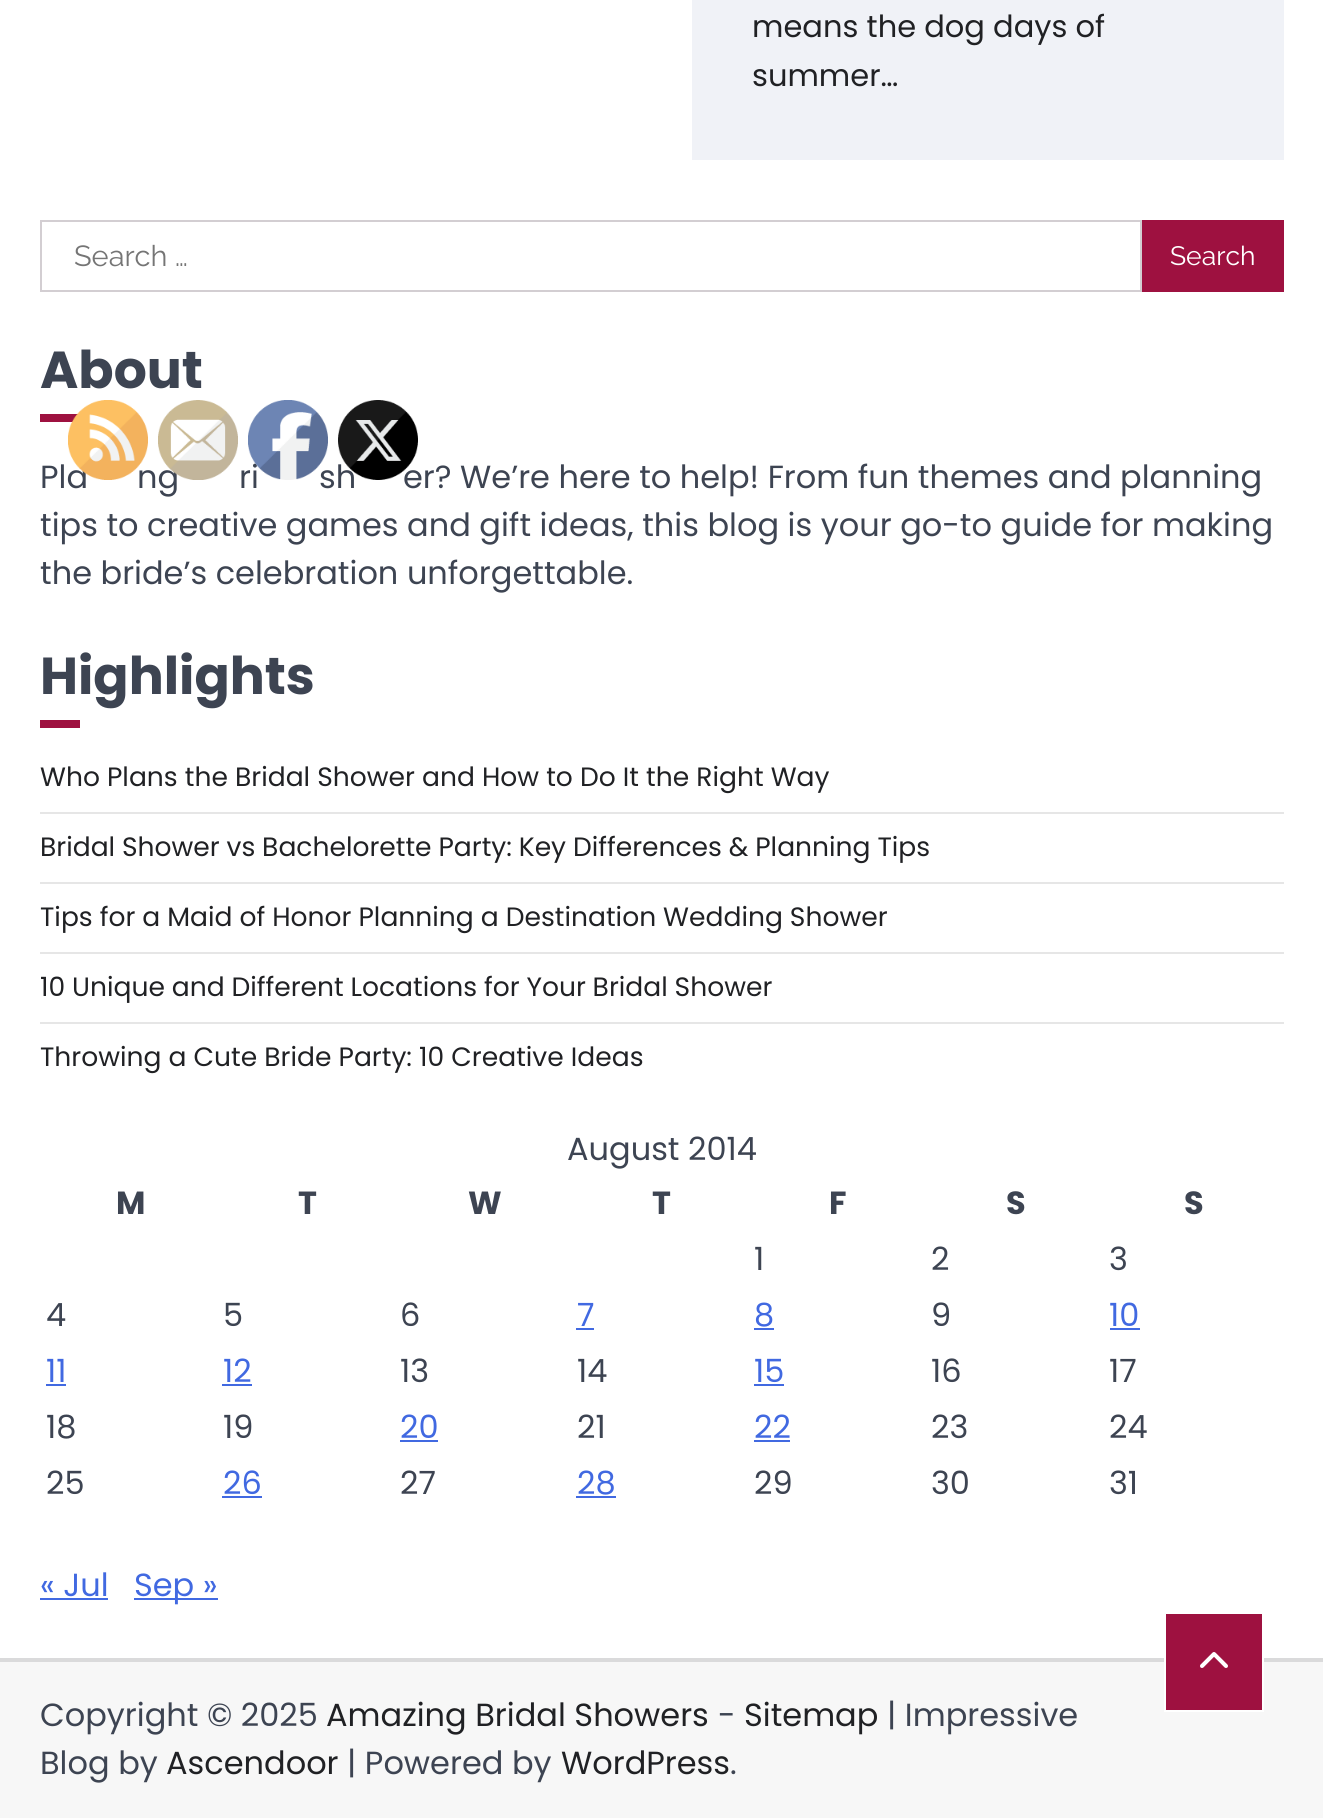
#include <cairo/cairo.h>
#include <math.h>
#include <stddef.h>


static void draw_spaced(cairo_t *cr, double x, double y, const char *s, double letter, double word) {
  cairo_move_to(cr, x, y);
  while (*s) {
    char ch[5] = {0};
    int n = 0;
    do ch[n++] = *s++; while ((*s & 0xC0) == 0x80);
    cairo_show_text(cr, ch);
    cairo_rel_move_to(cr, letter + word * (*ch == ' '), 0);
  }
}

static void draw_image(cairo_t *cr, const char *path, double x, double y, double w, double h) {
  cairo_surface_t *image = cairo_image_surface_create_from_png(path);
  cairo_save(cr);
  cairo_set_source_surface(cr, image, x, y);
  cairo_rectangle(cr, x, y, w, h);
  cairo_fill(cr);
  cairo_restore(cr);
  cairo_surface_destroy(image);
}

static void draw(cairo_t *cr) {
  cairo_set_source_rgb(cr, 1, 1, 1);
  cairo_paint(cr);
  cairo_set_source_rgb(cr, 240 / 255.0, 242 / 255.0, 247 / 255.0);
  cairo_rectangle(cr, 692, 0, 592, 160);
  cairo_fill(cr);
  cairo_rectangle(cr, 41, 221, 1100, 70);
  cairo_set_source_rgb(cr, 211 / 255.0, 206 / 255.0, 210 / 255.0);
  cairo_stroke(cr);
  cairo_set_source_rgb(cr, 158 / 255.0, 17 / 255.0, 64 / 255.0);
  cairo_rectangle(cr, 1142, 220, 142, 72);
  cairo_fill(cr);
  cairo_rectangle(cr, 40, 414, 40, 8);
  cairo_fill(cr);
  cairo_rectangle(cr, 40, 720, 40, 8);
  cairo_fill(cr);
  cairo_set_source_rgb(cr, 230 / 255.0, 230 / 255.0, 230 / 255.0);
  cairo_rectangle(cr, 40, 812, 1244, 2);
  cairo_fill(cr);
  cairo_rectangle(cr, 40, 882, 1244, 2);
  cairo_fill(cr);
  cairo_rectangle(cr, 40, 952, 1244, 2);
  cairo_fill(cr);
  cairo_rectangle(cr, 40, 1022, 1244, 2);
  cairo_fill(cr);
  cairo_set_source_rgb(cr, 65 / 255.0, 105 / 255.0, 225 / 255.0);
  cairo_rectangle(cr, 576, 1328, 18, 2);
  cairo_fill(cr);
  cairo_rectangle(cr, 754, 1328, 20, 2);
  cairo_fill(cr);
  cairo_rectangle(cr, 1110, 1328, 30, 2);
  cairo_fill(cr);
  cairo_rectangle(cr, 46, 1384, 20, 2);
  cairo_fill(cr);
  cairo_rectangle(cr, 222, 1384, 30, 2);
  cairo_fill(cr);
  cairo_rectangle(cr, 754, 1384, 30, 2);
  cairo_fill(cr);
  cairo_rectangle(cr, 400, 1440, 38, 2);
  cairo_fill(cr);
  cairo_rectangle(cr, 754, 1440, 36, 2);
  cairo_fill(cr);
  cairo_rectangle(cr, 222, 1496, 40, 2);
  cairo_fill(cr);
  cairo_rectangle(cr, 576, 1496, 40, 2);
  cairo_fill(cr);
  cairo_rectangle(cr, 40, 1598, 68, 2);
  cairo_fill(cr);
  cairo_rectangle(cr, 134, 1598, 84, 2);
  cairo_fill(cr);
  cairo_set_source_rgb(cr, 218 / 255.0, 218 / 255.0, 219 / 255.0);
  cairo_rectangle(cr, 0, 1658, 1323, 4);
  cairo_fill(cr);
  cairo_set_source_rgb(cr, 247 / 255.0, 247 / 255.0, 247 / 255.0);
  cairo_rectangle(cr, 0, 1662, 1323, 156);
  cairo_fill(cr);
  cairo_set_source_rgb(cr, 158 / 255.0, 17 / 255.0, 64 / 255.0);
  cairo_rectangle(cr, 1165, 1613, 98, 98);
  cairo_fill_preserve(cr);
  cairo_set_source_rgb(cr, 1, 1, 1);
  cairo_stroke(cr);
  draw_image(cr, "images/1.png", 1200, 1652, 28, 16);
  cairo_select_font_face(cr, "Poppins", CAIRO_FONT_SLANT_NORMAL, CAIRO_FONT_WEIGHT_NORMAL);
  cairo_set_font_size(cr, 30.5);
  cairo_set_source_rgb(cr, 32 / 255.0, 33 / 255.0, 36 / 255.0);
  cairo_move_to(cr, 752, 37);
  cairo_show_text(cr, "means the dog days of");
  cairo_move_to(cr, 752, 86);
  cairo_show_text(cr, "summer…");
  cairo_select_font_face(cr, "Raleway", CAIRO_FONT_SLANT_NORMAL, CAIRO_FONT_WEIGHT_NORMAL);
  cairo_set_font_size(cr, 29);
  cairo_set_source_rgb(cr, 117 / 255.0, 117 / 255.0, 117 / 255.0);
  cairo_move_to(cr, 74, 266);
  cairo_show_text(cr, "Search …");
  cairo_set_font_size(cr, 26.55);
  cairo_set_source_rgb(cr, 1, 1, 1);
  cairo_move_to(cr, 1170, 265);
  cairo_show_text(cr, "Search");
  cairo_select_font_face(cr, "Poppins", CAIRO_FONT_SLANT_NORMAL, CAIRO_FONT_WEIGHT_BOLD);
  cairo_set_font_size(cr, 52);
  cairo_set_source_rgb(cr, 61 / 255.0, 68 / 255.0, 82 / 255.0);
  cairo_move_to(cr, 40, 388);
  cairo_show_text(cr, "About");
  cairo_select_font_face(cr, "Poppins", CAIRO_FONT_SLANT_NORMAL, CAIRO_FONT_WEIGHT_NORMAL);
  cairo_set_font_size(cr, 32);
  cairo_move_to(cr, 40, 488);
  cairo_show_text(cr, "Pla");
  cairo_move_to(cr, 137, 488);
  cairo_show_text(cr, "ng");
  cairo_move_to(cr, 239, 488);
  cairo_show_text(cr, "ri");
  cairo_move_to(cr, 319, 488);
  cairo_show_text(cr, "sh");
  cairo_move_to(cr, 403, 488);
  cairo_show_text(cr, "er? We’re here to help! From fun themes and planning");
  cairo_move_to(cr, 40, 536);
  cairo_show_text(cr, "tips to creative games and gift ideas, this blog is your go-to guide for making");
  cairo_move_to(cr, 40, 584);
  cairo_show_text(cr, "the bride’s celebration unforgettable.");
  cairo_select_font_face(cr, "Poppins", CAIRO_FONT_SLANT_NORMAL, CAIRO_FONT_WEIGHT_BOLD);
  cairo_set_font_size(cr, 52);
  cairo_move_to(cr, 40, 694);
  cairo_show_text(cr, "Highlights");
  cairo_select_font_face(cr, "Poppins", CAIRO_FONT_SLANT_NORMAL, CAIRO_FONT_WEIGHT_NORMAL);
  cairo_set_font_size(cr, 26.55);
  cairo_set_source_rgb(cr, 32 / 255.0, 33 / 255.0, 36 / 255.0);
  cairo_move_to(cr, 40, 786);
  cairo_show_text(cr, "Who Plans the Bridal Shower and How to Do It the Right Way");
  draw_spaced(cr, 40, 856, "Bridal Shower vs Bachelorette Party: Key Differences & Planning Tips", 0, -0.25);
  draw_spaced(cr, 40, 926, "Tips for a Maid of Honor Planning a Destination Wedding Shower", 0, -0.1);
  draw_spaced(cr, 40, 996, "10 Unique and Different Locations for Your Bridal Shower", 0, -0.25);
  cairo_move_to(cr, 40, 1066);
  cairo_show_text(cr, "Throwing a Cute Bride Party: 10 Creative Ideas");
  cairo_set_font_size(cr, 32);
  cairo_set_source_rgb(cr, 61 / 255.0, 68 / 255.0, 82 / 255.0);
  cairo_move_to(cr, 567, 1160);
  cairo_show_text(cr, "August 2014");
  cairo_select_font_face(cr, "Poppins", CAIRO_FONT_SLANT_NORMAL, CAIRO_FONT_WEIGHT_BOLD);
  cairo_move_to(cr, 116, 1214);
  cairo_show_text(cr, "M");
  cairo_move_to(cr, 298, 1214);
  cairo_show_text(cr, "T");
  cairo_move_to(cr, 468, 1214);
  cairo_show_text(cr, "W");
  cairo_move_to(cr, 652, 1214);
  cairo_show_text(cr, "T");
  cairo_move_to(cr, 829, 1214);
  cairo_show_text(cr, "F");
  cairo_move_to(cr, 1006, 1214);
  cairo_show_text(cr, "S");
  cairo_move_to(cr, 1184, 1214);
  cairo_show_text(cr, "S");
  cairo_select_font_face(cr, "Poppins", CAIRO_FONT_SLANT_NORMAL, CAIRO_FONT_WEIGHT_NORMAL);
  cairo_move_to(cr, 754, 1270);
  cairo_show_text(cr, "1");
  cairo_move_to(cr, 931, 1270);
  cairo_show_text(cr, "2");
  cairo_move_to(cr, 1109, 1270);
  cairo_show_text(cr, "3");
  cairo_move_to(cr, 46, 1326);
  cairo_show_text(cr, "4");
  cairo_move_to(cr, 223, 1326);
  cairo_show_text(cr, "5");
  cairo_move_to(cr, 400, 1326);
  cairo_show_text(cr, "6");
  cairo_set_source_rgb(cr, 65 / 255.0, 105 / 255.0, 225 / 255.0);
  cairo_move_to(cr, 577, 1326);
  cairo_show_text(cr, "7");
  cairo_move_to(cr, 754, 1326);
  cairo_show_text(cr, "8");
  cairo_set_source_rgb(cr, 61 / 255.0, 68 / 255.0, 82 / 255.0);
  cairo_move_to(cr, 931, 1326);
  cairo_show_text(cr, "9");
  cairo_set_source_rgb(cr, 65 / 255.0, 105 / 255.0, 225 / 255.0);
  cairo_move_to(cr, 1109, 1326);
  cairo_show_text(cr, "10");
  cairo_move_to(cr, 46, 1382);
  cairo_show_text(cr, "11");
  cairo_move_to(cr, 223, 1382);
  cairo_show_text(cr, "12");
  cairo_set_source_rgb(cr, 61 / 255.0, 68 / 255.0, 82 / 255.0);
  cairo_move_to(cr, 400, 1382);
  cairo_show_text(cr, "13");
  cairo_move_to(cr, 577, 1382);
  cairo_show_text(cr, "14");
  cairo_set_source_rgb(cr, 65 / 255.0, 105 / 255.0, 225 / 255.0);
  cairo_move_to(cr, 754, 1382);
  cairo_show_text(cr, "15");
  cairo_set_source_rgb(cr, 61 / 255.0, 68 / 255.0, 82 / 255.0);
  cairo_move_to(cr, 931, 1382);
  cairo_show_text(cr, "16");
  cairo_move_to(cr, 1109, 1382);
  cairo_show_text(cr, "17");
  cairo_move_to(cr, 46, 1438);
  cairo_show_text(cr, "18");
  cairo_move_to(cr, 223, 1438);
  cairo_show_text(cr, "19");
  cairo_set_source_rgb(cr, 65 / 255.0, 105 / 255.0, 225 / 255.0);
  cairo_move_to(cr, 400, 1438);
  cairo_show_text(cr, "20");
  cairo_set_source_rgb(cr, 61 / 255.0, 68 / 255.0, 82 / 255.0);
  cairo_move_to(cr, 577, 1438);
  cairo_show_text(cr, "21");
  cairo_set_source_rgb(cr, 65 / 255.0, 105 / 255.0, 225 / 255.0);
  cairo_move_to(cr, 754, 1438);
  cairo_show_text(cr, "22");
  cairo_set_source_rgb(cr, 61 / 255.0, 68 / 255.0, 82 / 255.0);
  cairo_move_to(cr, 931, 1438);
  cairo_show_text(cr, "23");
  cairo_move_to(cr, 1109, 1438);
  cairo_show_text(cr, "24");
  cairo_move_to(cr, 46, 1494);
  cairo_show_text(cr, "25");
  cairo_set_source_rgb(cr, 65 / 255.0, 105 / 255.0, 225 / 255.0);
  cairo_move_to(cr, 223, 1494);
  cairo_show_text(cr, "26");
  cairo_set_source_rgb(cr, 61 / 255.0, 68 / 255.0, 82 / 255.0);
  cairo_move_to(cr, 400, 1494);
  cairo_show_text(cr, "27");
  cairo_set_source_rgb(cr, 65 / 255.0, 105 / 255.0, 225 / 255.0);
  cairo_move_to(cr, 577, 1494);
  cairo_show_text(cr, "28");
  cairo_set_source_rgb(cr, 61 / 255.0, 68 / 255.0, 82 / 255.0);
  cairo_move_to(cr, 754, 1494);
  cairo_show_text(cr, "29");
  cairo_move_to(cr, 931, 1494);
  cairo_show_text(cr, "30");
  cairo_move_to(cr, 1109, 1494);
  cairo_show_text(cr, "31");
  cairo_set_source_rgb(cr, 65 / 255.0, 105 / 255.0, 225 / 255.0);
  cairo_move_to(cr, 40, 1596);
  cairo_show_text(cr, "« Jul");
  cairo_move_to(cr, 134, 1596);
  cairo_show_text(cr, "Sep »");
  cairo_set_source_rgb(cr, 61 / 255.0, 68 / 255.0, 82 / 255.0);
  cairo_move_to(cr, 40, 1726);
  cairo_show_text(cr, "Copyright © 2025");
  cairo_set_source_rgb(cr, 32 / 255.0, 33 / 255.0, 36 / 255.0);
  cairo_move_to(cr, 326, 1726);
  cairo_show_text(cr, "Amazing Bridal Showers");
  cairo_set_source_rgb(cr, 61 / 255.0, 68 / 255.0, 82 / 255.0);
  cairo_move_to(cr, 718, 1726);
  cairo_show_text(cr, "-");
  cairo_set_source_rgb(cr, 32 / 255.0, 33 / 255.0, 36 / 255.0);
  cairo_move_to(cr, 744, 1726);
  cairo_show_text(cr, "Sitemap");
  cairo_set_source_rgb(cr, 61 / 255.0, 68 / 255.0, 82 / 255.0);
  cairo_move_to(cr, 887, 1726);
  cairo_show_text(cr, "| Impressive");
  cairo_move_to(cr, 40, 1774);
  cairo_show_text(cr, "Blog by");
  cairo_set_source_rgb(cr, 32 / 255.0, 33 / 255.0, 36 / 255.0);
  cairo_move_to(cr, 166, 1774);
  cairo_show_text(cr, "Ascendoor");
  cairo_set_source_rgb(cr, 61 / 255.0, 68 / 255.0, 82 / 255.0);
  cairo_move_to(cr, 347, 1774);
  cairo_show_text(cr, "| Powered by");
  cairo_set_source_rgb(cr, 32 / 255.0, 33 / 255.0, 36 / 255.0);
  cairo_move_to(cr, 561, 1774);
  cairo_show_text(cr, "WordPress");
  cairo_set_source_rgb(cr, 61 / 255.0, 68 / 255.0, 82 / 255.0);
  cairo_move_to(cr, 730, 1774);
  cairo_show_text(cr, ".");
  draw_image(cr, "images/2.png", 68, 400, 80, 80);
  draw_image(cr, "images/3.png", 158, 400, 80, 80);
  draw_image(cr, "images/4.png", 248, 400, 80, 80);
  draw_image(cr, "images/5.png", 338, 400, 80, 80);
}

int main(void) {
  cairo_surface_t *surface = cairo_image_surface_create(CAIRO_FORMAT_RGB24, 1323, 1818);
  cairo_t *cr = cairo_create(surface);
  cairo_font_options_t *options = cairo_font_options_create();
  cairo_font_options_set_hint_metrics(options, CAIRO_HINT_METRICS_OFF);
  cairo_font_options_set_hint_style(options, CAIRO_HINT_STYLE_NONE);
  cairo_set_font_options(cr, options);
  cairo_set_miter_limit(cr, 4);
  draw(cr);
  cairo_surface_write_to_png(surface, "out.png");
  cairo_font_options_destroy(options);
  cairo_destroy(cr);
  cairo_surface_destroy(surface);
  return 0;
}
